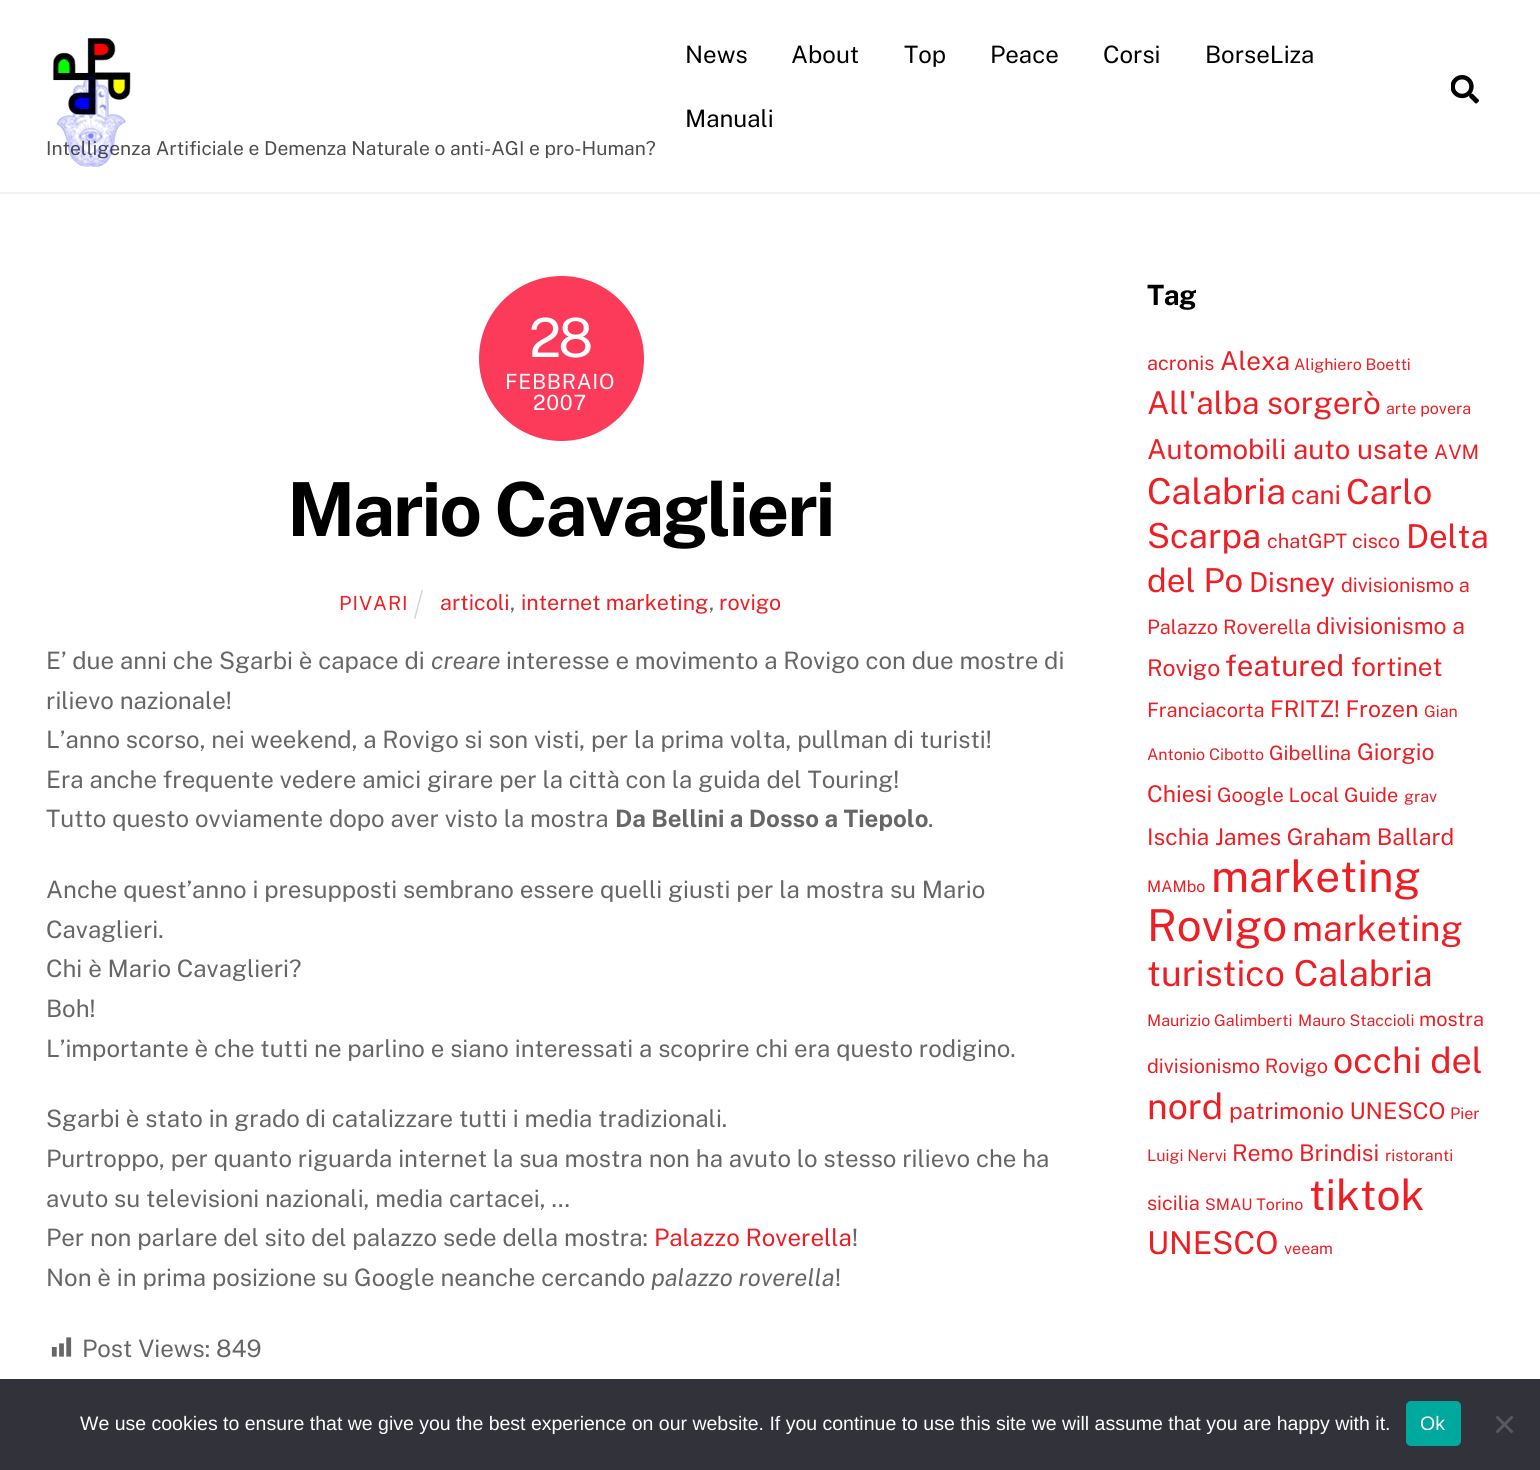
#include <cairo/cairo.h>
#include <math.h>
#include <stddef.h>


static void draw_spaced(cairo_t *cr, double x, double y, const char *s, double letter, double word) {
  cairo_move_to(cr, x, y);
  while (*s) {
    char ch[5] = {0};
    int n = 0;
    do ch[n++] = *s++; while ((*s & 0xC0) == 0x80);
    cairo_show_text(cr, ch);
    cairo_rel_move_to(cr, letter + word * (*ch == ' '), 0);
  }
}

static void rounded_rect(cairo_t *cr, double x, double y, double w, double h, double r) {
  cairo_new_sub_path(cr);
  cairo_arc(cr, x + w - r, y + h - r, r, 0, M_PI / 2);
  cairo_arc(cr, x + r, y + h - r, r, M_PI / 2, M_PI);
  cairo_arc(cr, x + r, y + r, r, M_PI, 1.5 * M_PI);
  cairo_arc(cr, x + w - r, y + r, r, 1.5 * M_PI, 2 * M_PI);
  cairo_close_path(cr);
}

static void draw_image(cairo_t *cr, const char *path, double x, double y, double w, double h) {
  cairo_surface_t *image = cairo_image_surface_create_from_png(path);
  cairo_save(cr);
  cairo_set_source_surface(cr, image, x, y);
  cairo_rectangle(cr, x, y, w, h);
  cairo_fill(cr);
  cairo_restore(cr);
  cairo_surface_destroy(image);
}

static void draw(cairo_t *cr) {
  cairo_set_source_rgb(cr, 1, 1, 1);
  cairo_paint(cr);
  cairo_set_source_rgb(cr, 242 / 255.0, 242 / 255.0, 242 / 255.0);
  cairo_rectangle(cr, 0, 192, 1540, 2);
  cairo_fill(cr);
  draw_image(cr, "images/1.png", 1451, 75, 28, 29);
  draw_image(cr, "images/2.png", 52, 38, 79, 77);
  cairo_set_source_rgb(cr, 252 / 255.0, 58 / 255.0, 89 / 255.0);
  cairo_arc(cr, 561.5, 358.5, 82.5, 0, 2 * M_PI);
  cairo_fill(cr);
  cairo_set_source_rgb(cr, 211 / 255.0, 211 / 255.0, 211 / 255.0);
  cairo_new_path(cr);
  cairo_move_to(cr, 421.5, 590);
  cairo_line_to(cr, 423, 590);
  cairo_line_to(cr, 415.5, 618.5);
  cairo_line_to(cr, 414, 618.5);
  cairo_close_path(cr);
  cairo_fill(cr);
  draw_image(cr, "images/3.png", 51, 1337, 21, 20);
  cairo_set_source_rgb(cr, 50 / 255.0, 50 / 255.0, 58 / 255.0);
  cairo_rectangle(cr, 0, 1379, 1540, 91);
  cairo_fill(cr);
  cairo_set_source_rgb(cr, 0, 169 / 255.0, 157 / 255.0);
  rounded_rect(cr, 1406, 1401, 55, 45, 5);
  cairo_fill(cr);
  cairo_set_source_rgb(cr, 89 / 255.0, 89 / 255.0, 93 / 255.0);
  cairo_new_path(cr);
  cairo_move_to(cr, 1511.5, 1415.5);
  cairo_line_to(cr, 1513.5, 1417.5);
  cairo_line_to(cr, 1497.5, 1433.5);
  cairo_line_to(cr, 1495.5, 1431.5);
  cairo_close_path(cr);
  cairo_fill(cr);
  cairo_new_path(cr);
  cairo_move_to(cr, 1495.5, 1417.5);
  cairo_line_to(cr, 1497.5, 1415.5);
  cairo_line_to(cr, 1513.5, 1431.5);
  cairo_line_to(cr, 1511.5, 1433.5);
  cairo_close_path(cr);
  cairo_fill(cr);
  cairo_select_font_face(cr, "Public Sans", CAIRO_FONT_SLANT_NORMAL, CAIRO_FONT_WEIGHT_NORMAL);
  cairo_set_font_size(cr, 24);
  cairo_set_source_rgb(cr, 0, 0, 0);
  cairo_move_to(cr, 685, 63);
  cairo_show_text(cr, "News");
  cairo_move_to(cr, 791, 63);
  cairo_show_text(cr, "About");
  cairo_move_to(cr, 904, 63);
  cairo_show_text(cr, "Top");
  cairo_move_to(cr, 990, 63);
  cairo_show_text(cr, "Peace");
  cairo_move_to(cr, 1103, 63);
  cairo_show_text(cr, "Corsi");
  cairo_move_to(cr, 1205, 63);
  cairo_show_text(cr, "BorseLiza");
  cairo_move_to(cr, 685, 127);
  cairo_show_text(cr, "Manuali");
  cairo_set_font_size(cr, 19.2);
  cairo_set_source_rgb(cr, 77 / 255.0, 77 / 255.0, 77 / 255.0);
  cairo_move_to(cr, 46, 155);
  cairo_show_text(cr, "Intelligenza Artificiale e Demenza Naturale o anti-AGI e pro-Human?");
  cairo_set_font_size(cr, 54);
  cairo_set_source_rgb(cr, 1, 1, 1);
  draw_spaced(cr, 529, 357, "28", -3, 0);
  cairo_set_font_size(cr, 21);
  draw_spaced(cr, 505, 389, "FEBBRAIO", 0.75, 0);
  draw_spaced(cr, 533, 410, "2007", 0.75, 0);
  cairo_select_font_face(cr, "Public Sans", CAIRO_FONT_SLANT_NORMAL, CAIRO_FONT_WEIGHT_BOLD);
  cairo_set_font_size(cr, 74.5);
  cairo_set_source_rgb(cr, 0, 0, 0);
  draw_spaced(cr, 287, 536, "Mario Cavaglieri", -2.25, 0);
  cairo_select_font_face(cr, "Public Sans", CAIRO_FONT_SLANT_NORMAL, CAIRO_FONT_WEIGHT_NORMAL);
  cairo_set_font_size(cr, 19.5);
  cairo_set_source_rgb(cr, 237 / 255.0, 30 / 255.0, 36 / 255.0);
  draw_spaced(cr, 339, 610, "PIVARI", 1, 0);
  cairo_set_font_size(cr, 21.5);
  cairo_move_to(cr, 440, 610);
  cairo_show_text(cr, "articoli");
  cairo_set_source_rgb(cr, 102 / 255.0, 102 / 255.0, 102 / 255.0);
  cairo_move_to(cr, 510, 610);
  cairo_show_text(cr, ",");
  cairo_set_source_rgb(cr, 237 / 255.0, 30 / 255.0, 36 / 255.0);
  cairo_move_to(cr, 521, 610);
  cairo_show_text(cr, "internet marketing");
  cairo_set_source_rgb(cr, 102 / 255.0, 102 / 255.0, 102 / 255.0);
  cairo_move_to(cr, 709, 610);
  cairo_show_text(cr, ",");
  cairo_set_source_rgb(cr, 237 / 255.0, 30 / 255.0, 36 / 255.0);
  cairo_move_to(cr, 719, 610);
  cairo_show_text(cr, "rovigo");
  cairo_set_font_size(cr, 24);
  cairo_set_source_rgb(cr, 102 / 255.0, 102 / 255.0, 102 / 255.0);
  cairo_move_to(cr, 46, 669);
  cairo_show_text(cr, "E’ due anni che Sgarbi è capace di");
  cairo_select_font_face(cr, "Public Sans", CAIRO_FONT_SLANT_ITALIC, CAIRO_FONT_WEIGHT_NORMAL);
  cairo_move_to(cr, 431, 669);
  cairo_show_text(cr, "creare");
  cairo_select_font_face(cr, "Public Sans", CAIRO_FONT_SLANT_NORMAL, CAIRO_FONT_WEIGHT_NORMAL);
  cairo_move_to(cr, 506, 669);
  cairo_show_text(cr, "interesse e movimento a Rovigo con due mostre di");
  cairo_move_to(cr, 46, 709);
  cairo_show_text(cr, "rilievo nazionale!");
  cairo_move_to(cr, 46, 748);
  cairo_show_text(cr, "L’anno scorso, nei weekend, a Rovigo si son visti, per la prima volta, pullman di turisti!");
  cairo_move_to(cr, 46, 788);
  cairo_show_text(cr, "Era anche frequente vedere amici girare per la città con la guida del Touring!");
  cairo_move_to(cr, 46, 827);
  cairo_show_text(cr, "Tutto questo ovviamente dopo aver visto la mostra");
  cairo_select_font_face(cr, "Public Sans", CAIRO_FONT_SLANT_NORMAL, CAIRO_FONT_WEIGHT_BOLD);
  cairo_move_to(cr, 615, 827);
  cairo_show_text(cr, "Da Bellini a Dosso a Tiepolo");
  cairo_select_font_face(cr, "Public Sans", CAIRO_FONT_SLANT_NORMAL, CAIRO_FONT_WEIGHT_NORMAL);
  cairo_move_to(cr, 928, 827);
  cairo_show_text(cr, ".");
  cairo_move_to(cr, 46, 898);
  cairo_show_text(cr, "Anche quest’anno i presupposti sembrano essere quelli giusti per la mostra su Mario");
  cairo_move_to(cr, 46, 938);
  cairo_show_text(cr, "Cavaglieri.");
  cairo_move_to(cr, 46, 977);
  cairo_show_text(cr, "Chi è Mario Cavaglieri?");
  cairo_move_to(cr, 46, 1017);
  cairo_show_text(cr, "Boh!");
  cairo_move_to(cr, 46, 1057);
  cairo_show_text(cr, "L’importante è che tutti ne parlino e siano interessati a scoprire chi era questo rodigino.");
  cairo_move_to(cr, 46, 1127);
  cairo_show_text(cr, "Sgarbi è stato in grado di catalizzare tutti i media tradizionali.");
  cairo_move_to(cr, 46, 1167);
  cairo_show_text(cr, "Purtroppo, per quanto riguarda internet la sua mostra non ha avuto lo stesso rilievo che ha");
  cairo_move_to(cr, 46, 1207);
  cairo_show_text(cr, "avuto su televisioni nazionali, media cartacei, …");
  cairo_move_to(cr, 46, 1246);
  cairo_show_text(cr, "Per non parlare del sito del palazzo sede della mostra:");
  cairo_set_source_rgb(cr, 237 / 255.0, 30 / 255.0, 36 / 255.0);
  cairo_move_to(cr, 654, 1246);
  cairo_show_text(cr, "Palazzo Roverella");
  cairo_set_source_rgb(cr, 102 / 255.0, 102 / 255.0, 102 / 255.0);
  cairo_move_to(cr, 852, 1246);
  cairo_show_text(cr, "!");
  cairo_move_to(cr, 46, 1286);
  cairo_show_text(cr, "Non è in prima posizione su Google neanche cercando");
  cairo_select_font_face(cr, "Public Sans", CAIRO_FONT_SLANT_ITALIC, CAIRO_FONT_WEIGHT_NORMAL);
  cairo_move_to(cr, 651, 1286);
  cairo_show_text(cr, "palazzo roverella");
  cairo_select_font_face(cr, "Public Sans", CAIRO_FONT_SLANT_NORMAL, CAIRO_FONT_WEIGHT_NORMAL);
  cairo_move_to(cr, 835, 1286);
  cairo_show_text(cr, "!");
  cairo_move_to(cr, 82, 1357);
  cairo_show_text(cr, "Post Views: 849");
  cairo_select_font_face(cr, "Public Sans", CAIRO_FONT_SLANT_NORMAL, CAIRO_FONT_WEIGHT_BOLD);
  cairo_set_font_size(cr, 28);
  cairo_set_source_rgb(cr, 0, 0, 0);
  draw_spaced(cr, 1147, 305, "Tag", -0.5, 0);
  cairo_select_font_face(cr, "Public Sans", CAIRO_FONT_SLANT_NORMAL, CAIRO_FONT_WEIGHT_NORMAL);
  cairo_set_font_size(cr, 19.9);
  cairo_set_source_rgb(cr, 237 / 255.0, 30 / 255.0, 36 / 255.0);
  cairo_move_to(cr, 1147, 370);
  cairo_show_text(cr, "acronis");
  cairo_set_font_size(cr, 26);
  cairo_move_to(cr, 1220, 370);
  cairo_show_text(cr, "Alexa");
  cairo_set_font_size(cr, 16);
  cairo_move_to(cr, 1294, 370);
  cairo_show_text(cr, "Alighiero Boetti");
  cairo_set_font_size(cr, 31.5);
  cairo_move_to(cr, 1147, 414);
  cairo_show_text(cr, "All'alba sorgerò");
  cairo_set_font_size(cr, 16);
  cairo_move_to(cr, 1386, 414);
  cairo_show_text(cr, "arte povera");
  cairo_set_font_size(cr, 27.5);
  cairo_move_to(cr, 1147, 459);
  cairo_show_text(cr, "Automobili");
  cairo_move_to(cr, 1293, 459);
  cairo_show_text(cr, "auto usate");
  cairo_set_font_size(cr, 19.9);
  cairo_move_to(cr, 1434, 459);
  cairo_show_text(cr, "AVM");
  cairo_set_font_size(cr, 35.75);
  cairo_move_to(cr, 1147, 504);
  cairo_show_text(cr, "Calabria");
  cairo_set_font_size(cr, 26);
  cairo_move_to(cr, 1291, 504);
  cairo_show_text(cr, "cani");
  cairo_set_font_size(cr, 34.5);
  cairo_move_to(cr, 1346, 504);
  cairo_show_text(cr, "Carlo");
  cairo_move_to(cr, 1147, 548);
  cairo_show_text(cr, "Scarpa");
  cairo_set_font_size(cr, 19.9);
  cairo_move_to(cr, 1267, 548);
  cairo_show_text(cr, "chatGPT");
  cairo_move_to(cr, 1352, 548);
  cairo_show_text(cr, "cisco");
  cairo_set_font_size(cr, 33);
  cairo_move_to(cr, 1406, 548);
  cairo_show_text(cr, "Delta");
  cairo_move_to(cr, 1147, 592);
  cairo_show_text(cr, "del Po");
  cairo_set_font_size(cr, 27.5);
  cairo_move_to(cr, 1249, 592);
  cairo_show_text(cr, "Disney");
  cairo_set_font_size(cr, 19.9);
  cairo_move_to(cr, 1341, 592);
  cairo_show_text(cr, "divisionismo a");
  cairo_move_to(cr, 1147, 634);
  cairo_show_text(cr, "Palazzo Roverella");
  cairo_set_font_size(cr, 23);
  cairo_move_to(cr, 1316, 634);
  cairo_show_text(cr, "divisionismo a");
  cairo_move_to(cr, 1147, 676);
  cairo_show_text(cr, "Rovigo");
  cairo_set_font_size(cr, 29.5);
  cairo_move_to(cr, 1225, 676);
  cairo_show_text(cr, "featured");
  cairo_set_font_size(cr, 26);
  cairo_move_to(cr, 1351, 676);
  cairo_show_text(cr, "fortinet");
  cairo_set_font_size(cr, 19.9);
  cairo_move_to(cr, 1147, 717);
  cairo_show_text(cr, "Franciacorta");
  cairo_set_font_size(cr, 23);
  cairo_move_to(cr, 1270, 717);
  cairo_show_text(cr, "FRITZ! Frozen");
  cairo_set_font_size(cr, 16);
  cairo_move_to(cr, 1424, 717);
  cairo_show_text(cr, "Gian");
  cairo_move_to(cr, 1147, 760);
  cairo_show_text(cr, "Antonio Cibotto");
  cairo_set_font_size(cr, 19.9);
  cairo_move_to(cr, 1269, 760);
  cairo_show_text(cr, "Gibellina");
  cairo_set_font_size(cr, 23);
  cairo_move_to(cr, 1357, 760);
  cairo_show_text(cr, "Giorgio");
  cairo_move_to(cr, 1147, 802);
  cairo_show_text(cr, "Chiesi");
  cairo_set_font_size(cr, 19.9);
  cairo_move_to(cr, 1217, 802);
  cairo_show_text(cr, "Google Local Guide");
  cairo_set_font_size(cr, 16);
  cairo_move_to(cr, 1404, 802);
  cairo_show_text(cr, "grav");
  cairo_set_font_size(cr, 23);
  cairo_move_to(cr, 1147, 845);
  cairo_show_text(cr, "Ischia James Graham Ballard");
  cairo_set_font_size(cr, 16);
  cairo_move_to(cr, 1147, 892);
  cairo_show_text(cr, "MAMbo");
  cairo_set_font_size(cr, 44);
  cairo_move_to(cr, 1211, 892);
  cairo_show_text(cr, "marketing");
  cairo_move_to(cr, 1147, 941);
  cairo_show_text(cr, "Rovigo");
  cairo_set_font_size(cr, 35.75);
  cairo_move_to(cr, 1292, 941);
  cairo_show_text(cr, "marketing");
  cairo_move_to(cr, 1147, 986);
  cairo_show_text(cr, "turistico Calabria");
  cairo_set_font_size(cr, 16);
  cairo_move_to(cr, 1147, 1026);
  cairo_show_text(cr, "Maurizio Galimberti");
  cairo_move_to(cr, 1298, 1026);
  cairo_show_text(cr, "Mauro Staccioli");
  cairo_set_font_size(cr, 19.9);
  cairo_move_to(cr, 1419, 1026);
  cairo_show_text(cr, "mostra");
  cairo_move_to(cr, 1147, 1073);
  cairo_show_text(cr, "divisionismo Rovigo");
  cairo_set_font_size(cr, 35.75);
  cairo_move_to(cr, 1333, 1073);
  cairo_show_text(cr, "occhi del");
  cairo_move_to(cr, 1147, 1119);
  cairo_show_text(cr, "nord");
  cairo_set_font_size(cr, 23);
  cairo_move_to(cr, 1229, 1119);
  cairo_show_text(cr, "patrimonio UNESCO");
  cairo_set_font_size(cr, 16);
  cairo_move_to(cr, 1450, 1119);
  cairo_show_text(cr, "Pier");
  cairo_move_to(cr, 1147, 1161);
  cairo_show_text(cr, "Luigi Nervi");
  cairo_set_font_size(cr, 23);
  cairo_move_to(cr, 1232, 1161);
  cairo_show_text(cr, "Remo Brindisi");
  cairo_set_font_size(cr, 16);
  cairo_move_to(cr, 1385, 1161);
  cairo_show_text(cr, "ristoranti");
  cairo_set_font_size(cr, 19.9);
  cairo_move_to(cr, 1147, 1210);
  cairo_show_text(cr, "sicilia");
  cairo_set_font_size(cr, 16);
  cairo_move_to(cr, 1205, 1210);
  cairo_show_text(cr, "SMAU Torino");
  cairo_set_font_size(cr, 42.5);
  cairo_move_to(cr, 1309, 1210);
  cairo_show_text(cr, "tiktok");
  cairo_set_font_size(cr, 31.5);
  cairo_move_to(cr, 1147, 1254);
  cairo_show_text(cr, "UNESCO");
  cairo_set_font_size(cr, 16);
  cairo_move_to(cr, 1284, 1254);
  cairo_show_text(cr, "veeam");
  draw_image(cr, "images/4.png", 56, 76, 70, 91);
  cairo_select_font_face(cr, "Liberation Sans", CAIRO_FONT_SLANT_NORMAL, CAIRO_FONT_WEIGHT_NORMAL);
  cairo_set_font_size(cr, 19.5);
  cairo_set_source_rgb(cr, 1, 1, 1);
  cairo_move_to(cr, 80, 1430);
  cairo_show_text(cr, "We use cookies to ensure that we give you the best experience on our website. If you continue to use this site we will assume that you are happy with it.");
  cairo_move_to(cr, 1420, 1430);
  cairo_show_text(cr, "Ok");
}

int main(void) {
  cairo_surface_t *surface = cairo_image_surface_create(CAIRO_FORMAT_RGB24, 1540, 1470);
  cairo_t *cr = cairo_create(surface);
  cairo_font_options_t *options = cairo_font_options_create();
  cairo_font_options_set_hint_metrics(options, CAIRO_HINT_METRICS_OFF);
  cairo_font_options_set_hint_style(options, CAIRO_HINT_STYLE_NONE);
  cairo_set_font_options(cr, options);
  cairo_set_miter_limit(cr, 4);
  draw(cr);
  cairo_surface_write_to_png(surface, "out.png");
  cairo_font_options_destroy(options);
  cairo_destroy(cr);
  cairo_surface_destroy(surface);
  return 0;
}
